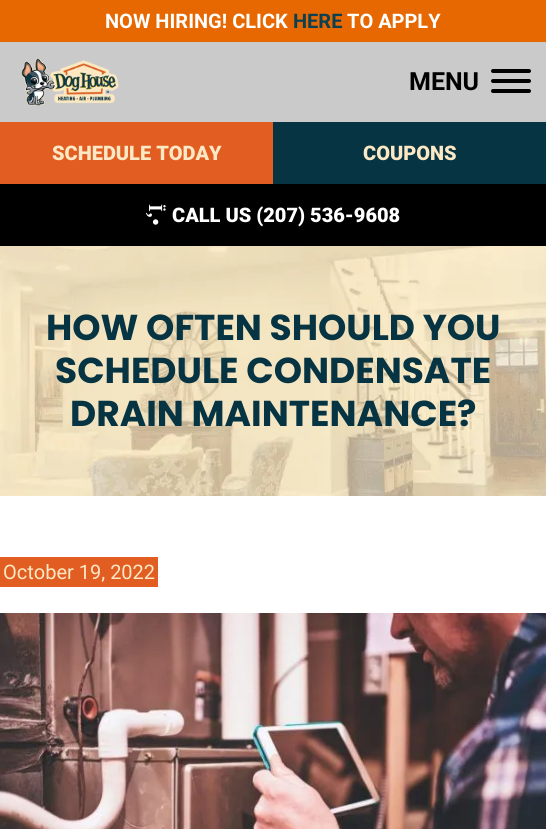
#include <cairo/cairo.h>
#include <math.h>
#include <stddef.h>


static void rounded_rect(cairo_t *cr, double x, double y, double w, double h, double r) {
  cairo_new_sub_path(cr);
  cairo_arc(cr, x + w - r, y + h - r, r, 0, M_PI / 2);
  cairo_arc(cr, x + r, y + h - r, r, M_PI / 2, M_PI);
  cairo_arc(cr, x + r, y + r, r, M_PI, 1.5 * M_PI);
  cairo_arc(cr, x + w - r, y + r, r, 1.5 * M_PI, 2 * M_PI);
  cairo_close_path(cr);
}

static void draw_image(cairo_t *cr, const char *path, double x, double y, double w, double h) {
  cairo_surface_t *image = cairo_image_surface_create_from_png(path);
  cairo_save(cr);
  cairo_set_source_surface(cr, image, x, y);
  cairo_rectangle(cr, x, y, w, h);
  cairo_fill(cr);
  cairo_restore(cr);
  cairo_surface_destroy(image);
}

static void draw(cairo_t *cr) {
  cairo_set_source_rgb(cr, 1, 1, 1);
  cairo_paint(cr);
  cairo_set_source_rgb(cr, 231 / 255.0, 104 / 255.0, 0);
  cairo_rectangle(cr, 0, 0, 546, 42);
  cairo_fill(cr);
  cairo_set_source_rgb(cr, 202 / 255.0, 202 / 255.0, 202 / 255.0);
  cairo_rectangle(cr, 0, 42, 546, 80);
  cairo_fill(cr);
  draw_image(cr, "images/1.png", 21, 58, 98, 48);
  cairo_set_source_rgb(cr, 0, 0, 0);
  rounded_rect(cr, 491, 79, 40, 4, 2);
  cairo_fill(cr);
  rounded_rect(cr, 491, 69, 40, 4, 2);
  cairo_fill(cr);
  rounded_rect(cr, 491, 89, 40, 4, 2);
  cairo_fill(cr);
  cairo_set_source_rgb(cr, 225 / 255.0, 93 / 255.0, 33 / 255.0);
  cairo_rectangle(cr, 0, 122, 273, 62);
  cairo_fill(cr);
  cairo_set_source_rgb(cr, 6 / 255.0, 52 / 255.0, 66 / 255.0);
  cairo_rectangle(cr, 273, 122, 273, 62);
  cairo_fill(cr);
  cairo_set_source_rgb(cr, 0, 0, 0);
  cairo_rectangle(cr, 0, 184, 546, 62);
  cairo_fill(cr);
  draw_image(cr, "images/2.png", 0, 246, 546, 250);
  cairo_set_source_rgb(cr, 225 / 255.0, 93 / 255.0, 33 / 255.0);
  cairo_rectangle(cr, 0, 557, 158, 30);
  cairo_fill(cr);
  draw_image(cr, "images/3.png", 0, 613, 546, 216);
  cairo_select_font_face(cr, "Roboto", CAIRO_FONT_SLANT_NORMAL, CAIRO_FONT_WEIGHT_BOLD);
  cairo_set_font_size(cr, 20);
  cairo_set_source_rgb(cr, 1, 1, 1);
  cairo_move_to(cr, 105, 28);
  cairo_show_text(cr, "NOW HIRING! CLICK");
  cairo_set_source_rgb(cr, 10 / 255.0, 64 / 255.0, 81 / 255.0);
  cairo_move_to(cr, 293, 28);
  cairo_show_text(cr, "HERE");
  cairo_set_source_rgb(cr, 1, 1, 1);
  cairo_move_to(cr, 347, 28);
  cairo_show_text(cr, "TO APPLY");
  cairo_set_font_size(cr, 25);
  cairo_set_source_rgb(cr, 0, 0, 0);
  cairo_move_to(cr, 409, 90);
  cairo_show_text(cr, "MENU");
  cairo_select_font_face(cr, "Roboto Black", CAIRO_FONT_SLANT_NORMAL, CAIRO_FONT_WEIGHT_NORMAL);
  cairo_set_font_size(cr, 20);
  cairo_set_source_rgb(cr, 252 / 255.0, 232 / 255.0, 196 / 255.0);
  cairo_move_to(cr, 52, 160);
  cairo_show_text(cr, "SCHEDULE TODAY");
  cairo_move_to(cr, 363, 160);
  cairo_show_text(cr, "COUPONS");
  cairo_select_font_face(cr, "Liberation Serif", CAIRO_FONT_SLANT_NORMAL, CAIRO_FONT_WEIGHT_BOLD);
  cairo_set_source_rgb(cr, 1, 1, 1);
  cairo_save(cr);
  cairo_translate(cr, 149, 204);
  cairo_rotate(cr, 90 * M_PI / 180);
  cairo_move_to(cr, 0, 0);
  cairo_show_text(cr, "Ï‚•");
  cairo_restore(cr);
  cairo_select_font_face(cr, "Roboto Black", CAIRO_FONT_SLANT_NORMAL, CAIRO_FONT_WEIGHT_NORMAL);
  cairo_move_to(cr, 172, 222);
  cairo_show_text(cr, "CALL US (207) 536-9608");
  cairo_select_font_face(cr, "Poppins", CAIRO_FONT_SLANT_NORMAL, CAIRO_FONT_WEIGHT_BOLD);
  cairo_set_font_size(cr, 36);
  cairo_set_source_rgb(cr, 6 / 255.0, 52 / 255.0, 66 / 255.0);
  cairo_move_to(cr, 46, 340);
  cairo_show_text(cr, "HOW OFTEN SHOULD YOU");
  cairo_move_to(cr, 55, 383);
  cairo_show_text(cr, "SCHEDULE CONDENSATE");
  cairo_move_to(cr, 70, 426);
  cairo_show_text(cr, "DRAIN MAINTENANCE?");
  cairo_select_font_face(cr, "Roboto", CAIRO_FONT_SLANT_NORMAL, CAIRO_FONT_WEIGHT_NORMAL);
  cairo_set_font_size(cr, 20);
  cairo_set_source_rgb(cr, 252 / 255.0, 232 / 255.0, 196 / 255.0);
  cairo_move_to(cr, 3, 579);
  cairo_show_text(cr, "October 19, 2022");
}

int main(void) {
  cairo_surface_t *surface = cairo_image_surface_create(CAIRO_FORMAT_RGB24, 546, 829);
  cairo_t *cr = cairo_create(surface);
  cairo_font_options_t *options = cairo_font_options_create();
  cairo_font_options_set_hint_metrics(options, CAIRO_HINT_METRICS_OFF);
  cairo_font_options_set_hint_style(options, CAIRO_HINT_STYLE_NONE);
  cairo_set_font_options(cr, options);
  cairo_set_miter_limit(cr, 4);
  draw(cr);
  cairo_surface_write_to_png(surface, "out.png");
  cairo_font_options_destroy(options);
  cairo_destroy(cr);
  cairo_surface_destroy(surface);
  return 0;
}
